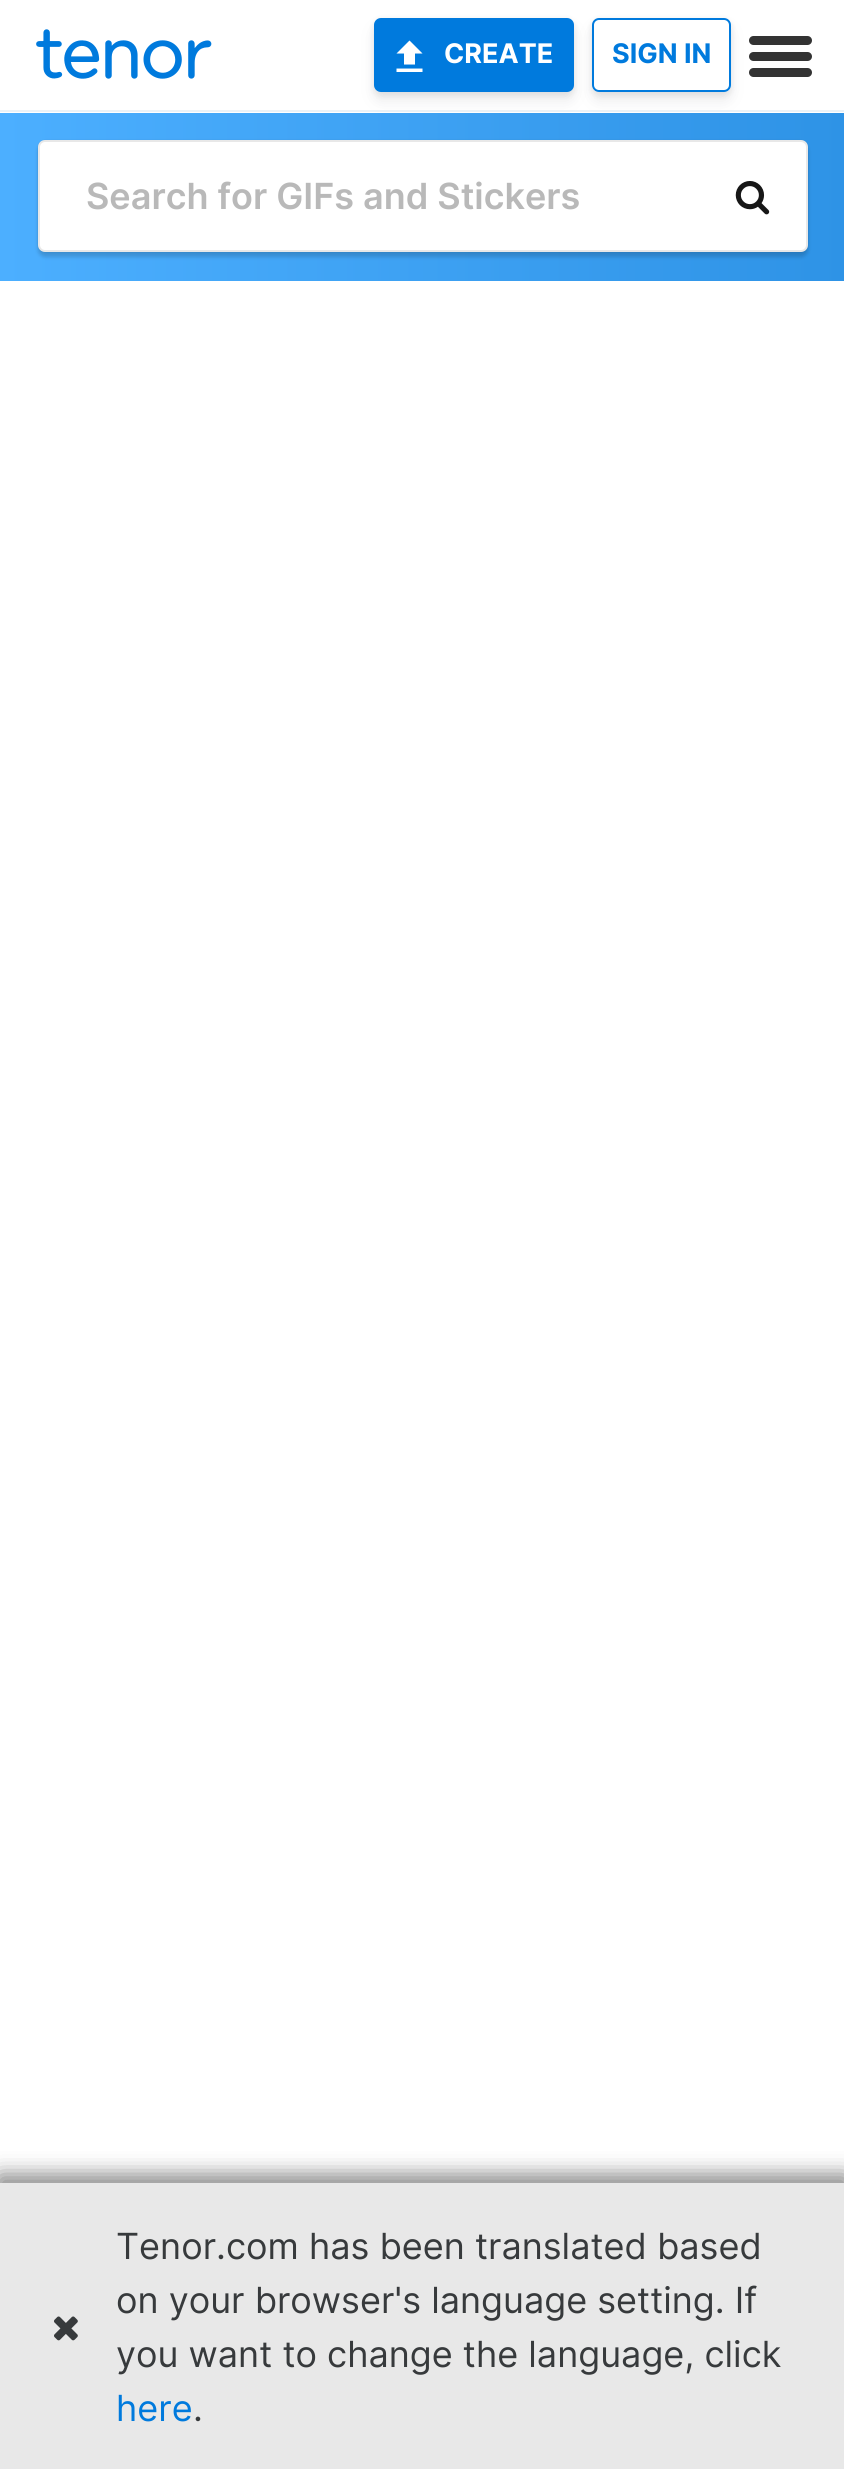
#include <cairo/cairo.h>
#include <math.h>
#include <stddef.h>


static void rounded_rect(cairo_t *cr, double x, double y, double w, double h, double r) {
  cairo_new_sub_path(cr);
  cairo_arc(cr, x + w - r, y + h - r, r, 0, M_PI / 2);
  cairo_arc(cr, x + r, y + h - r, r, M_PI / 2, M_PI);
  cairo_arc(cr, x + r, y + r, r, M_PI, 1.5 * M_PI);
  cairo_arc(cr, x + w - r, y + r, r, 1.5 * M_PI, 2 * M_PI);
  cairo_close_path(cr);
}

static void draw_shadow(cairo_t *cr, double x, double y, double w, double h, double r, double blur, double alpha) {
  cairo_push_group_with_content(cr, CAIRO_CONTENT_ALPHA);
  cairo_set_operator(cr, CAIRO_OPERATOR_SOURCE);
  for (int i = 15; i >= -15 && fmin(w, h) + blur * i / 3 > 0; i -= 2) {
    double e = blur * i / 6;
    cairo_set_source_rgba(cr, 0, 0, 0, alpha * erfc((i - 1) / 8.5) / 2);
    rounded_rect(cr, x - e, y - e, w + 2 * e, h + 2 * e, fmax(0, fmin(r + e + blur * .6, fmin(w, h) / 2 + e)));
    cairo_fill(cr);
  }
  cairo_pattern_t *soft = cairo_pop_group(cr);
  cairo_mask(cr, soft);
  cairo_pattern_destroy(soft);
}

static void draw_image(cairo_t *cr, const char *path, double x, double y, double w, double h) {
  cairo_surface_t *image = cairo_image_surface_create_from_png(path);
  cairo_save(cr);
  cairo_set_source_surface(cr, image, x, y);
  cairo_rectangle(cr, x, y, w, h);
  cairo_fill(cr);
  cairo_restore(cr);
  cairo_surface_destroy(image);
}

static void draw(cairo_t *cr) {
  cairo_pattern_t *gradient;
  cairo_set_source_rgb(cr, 1, 1, 1);
  cairo_paint(cr);
  cairo_set_source_rgb(cr, 235 / 255.0, 242 / 255.0, 247 / 255.0);
  cairo_rectangle(cr, 0, 110, 844, 2);
  cairo_fill(cr);
  draw_image(cr, "images/1.png", 36, 29, 176, 50);
  cairo_set_source_rgb(cr, 83 / 255.0, 83 / 255.0, 92 / 255.0);
  draw_shadow(cr, 374, 27, 200, 74, 7, 7, 0.11);
  cairo_set_source_rgb(cr, 0, 0, 0);
  draw_shadow(cr, 374, 20, 200, 75, 7, 3.5, 0.08);
  cairo_set_source_rgb(cr, 0, 122 / 255.0, 221 / 255.0);
  rounded_rect(cr, 375, 19, 198, 72, 6);
  cairo_fill_preserve(cr);
  cairo_stroke(cr);
  cairo_set_source_rgb(cr, 1, 1, 1);
  cairo_new_path(cr);
  cairo_move_to(cr, 404, 64.5);
  cairo_line_to(cr, 415, 64.5);
  cairo_line_to(cr, 415, 53.5);
  cairo_line_to(cr, 422.5, 53.5);
  cairo_line_to(cr, 409.5, 40.5);
  cairo_line_to(cr, 396.5, 53.5);
  cairo_line_to(cr, 404, 53.5);
  cairo_close_path(cr);
  cairo_move_to(cr, 396.5, 68.5);
  cairo_line_to(cr, 422.5, 68.5);
  cairo_line_to(cr, 422.5, 72);
  cairo_line_to(cr, 396.5, 72);
  cairo_close_path(cr);
  cairo_fill(cr);
  cairo_save(cr);
  cairo_set_fill_rule(cr, CAIRO_FILL_RULE_EVEN_ODD);
  cairo_new_path(cr);
  cairo_move_to(cr, 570, 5);
  cairo_line_to(cr, 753, 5);
  cairo_line_to(cr, 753, 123);
  cairo_line_to(cr, 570, 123);
  cairo_close_path(cr);
  cairo_move_to(cr, 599, 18);
  cairo_line_to(cr, 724, 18);
  cairo_curve_to(cr, 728, 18, 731, 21, 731, 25);
  cairo_line_to(cr, 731, 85);
  cairo_curve_to(cr, 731, 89, 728, 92, 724, 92);
  cairo_line_to(cr, 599, 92);
  cairo_curve_to(cr, 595, 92, 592, 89, 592, 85);
  cairo_line_to(cr, 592, 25);
  cairo_curve_to(cr, 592, 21, 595, 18, 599, 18);
  cairo_close_path(cr);
  cairo_clip(cr);
  cairo_set_source_rgb(cr, 83 / 255.0, 83 / 255.0, 92 / 255.0);
  draw_shadow(cr, 592, 27, 139, 74, 7, 7, 0.11);
  cairo_restore(cr);
  cairo_save(cr);
  cairo_set_fill_rule(cr, CAIRO_FILL_RULE_EVEN_ODD);
  cairo_new_path(cr);
  cairo_move_to(cr, 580, 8);
  cairo_line_to(cr, 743, 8);
  cairo_line_to(cr, 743, 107);
  cairo_line_to(cr, 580, 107);
  cairo_close_path(cr);
  cairo_move_to(cr, 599, 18);
  cairo_line_to(cr, 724, 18);
  cairo_curve_to(cr, 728, 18, 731, 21, 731, 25);
  cairo_line_to(cr, 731, 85);
  cairo_curve_to(cr, 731, 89, 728, 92, 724, 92);
  cairo_line_to(cr, 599, 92);
  cairo_curve_to(cr, 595, 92, 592, 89, 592, 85);
  cairo_line_to(cr, 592, 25);
  cairo_curve_to(cr, 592, 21, 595, 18, 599, 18);
  cairo_close_path(cr);
  cairo_clip(cr);
  cairo_set_source_rgb(cr, 0, 0, 0);
  draw_shadow(cr, 592, 20, 139, 75, 7, 3.5, 0.08);
  cairo_restore(cr);
  rounded_rect(cr, 593, 19, 137, 72, 6);
  cairo_set_source_rgb(cr, 0, 122 / 255.0, 221 / 255.0);
  cairo_stroke(cr);
  cairo_set_source_rgb(cr, 51 / 255.0, 51 / 255.0, 51 / 255.0);
  rounded_rect(cr, 749, 52, 63, 9, 4.5);
  cairo_fill(cr);
  rounded_rect(cr, 749, 36, 63, 9, 4.5);
  cairo_fill(cr);
  rounded_rect(cr, 749, 68, 63, 9, 4.5);
  cairo_fill(cr);
  gradient = cairo_pattern_create_linear(0, 197, 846, 197);
  cairo_pattern_add_color_stop_rgba(gradient, 0, 76 / 255.0, 175 / 255.0, 1, 1);
  cairo_pattern_add_color_stop_rgba(gradient, 1, 46 / 255.0, 147 / 255.0, 230 / 255.0, 1);
  cairo_set_source(cr, gradient);
  cairo_pattern_destroy(gradient);
  cairo_rectangle(cr, 0, 113, 844, 168);
  cairo_fill(cr);
  cairo_set_source_rgb(cr, 0, 0, 0);
  draw_shadow(cr, 38, 140, 770, 112, 7, 1, 0.08);
  draw_shadow(cr, 38, 144, 770, 113, 7, 2, 0.16);
  cairo_set_source_rgb(cr, 1, 1, 1);
  rounded_rect(cr, 39, 141, 768, 110, 6);
  cairo_fill_preserve(cr);
  cairo_set_source_rgb(cr, 232 / 255.0, 232 / 255.0, 232 / 255.0);
  cairo_stroke(cr);
  draw_image(cr, "images/2.png", 735, 181, 35, 34);
  cairo_set_source_rgb(cr, 153 / 255.0, 153 / 255.0, 153 / 255.0);
  draw_shadow(cr, 0, 2178, 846, 288, 0, 11, 1);
  draw_shadow(cr, 0, 2178, 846, 288, 0, 11, 1);
  cairo_set_source_rgb(cr, 232 / 255.0, 232 / 255.0, 232 / 255.0);
  cairo_rectangle(cr, 0, 2183, 844, 286);
  cairo_fill(cr);
  draw_image(cr, "images/3.png", 54, 2316, 24, 25);
  cairo_select_font_face(cr, "Inter", CAIRO_FONT_SLANT_NORMAL, CAIRO_FONT_WEIGHT_BOLD);
  cairo_set_font_size(cr, 27);
  cairo_set_source_rgb(cr, 1, 1, 1);
  cairo_move_to(cr, 444, 63);
  cairo_show_text(cr, "CREATE");
  cairo_set_source_rgb(cr, 0, 122 / 255.0, 221 / 255.0);
  cairo_move_to(cr, 612, 63);
  cairo_show_text(cr, "SIGN IN");
  cairo_select_font_face(cr, "Inter SemiBold", CAIRO_FONT_SLANT_NORMAL, CAIRO_FONT_WEIGHT_NORMAL);
  cairo_set_font_size(cr, 36);
  cairo_set_source_rgb(cr, 185 / 255.0, 185 / 255.0, 185 / 255.0);
  cairo_move_to(cr, 86, 209);
  cairo_show_text(cr, "Search for GIFs and Stickers");
  cairo_select_font_face(cr, "Inter", CAIRO_FONT_SLANT_NORMAL, CAIRO_FONT_WEIGHT_NORMAL);
  cairo_set_source_rgb(cr, 55 / 255.0, 58 / 255.0, 60 / 255.0);
  cairo_move_to(cr, 116, 2259);
  cairo_show_text(cr, "Tenor.com has been translated based");
  cairo_move_to(cr, 116, 2313);
  cairo_show_text(cr, "on your browser's language setting. If");
  cairo_move_to(cr, 116, 2367);
  cairo_show_text(cr, "you want to change the language, click");
  cairo_set_source_rgb(cr, 0, 122 / 255.0, 221 / 255.0);
  cairo_move_to(cr, 116, 2421);
  cairo_show_text(cr, "here");
  cairo_set_source_rgb(cr, 55 / 255.0, 58 / 255.0, 60 / 255.0);
  cairo_move_to(cr, 193, 2421);
  cairo_show_text(cr, ".");
}

int main(void) {
  cairo_surface_t *surface = cairo_image_surface_create(CAIRO_FORMAT_RGB24, 844, 2469);
  cairo_t *cr = cairo_create(surface);
  cairo_font_options_t *options = cairo_font_options_create();
  cairo_font_options_set_hint_metrics(options, CAIRO_HINT_METRICS_OFF);
  cairo_font_options_set_hint_style(options, CAIRO_HINT_STYLE_NONE);
  cairo_set_font_options(cr, options);
  cairo_set_miter_limit(cr, 4);
  draw(cr);
  cairo_surface_write_to_png(surface, "out.png");
  cairo_font_options_destroy(options);
  cairo_destroy(cr);
  cairo_surface_destroy(surface);
  return 0;
}
